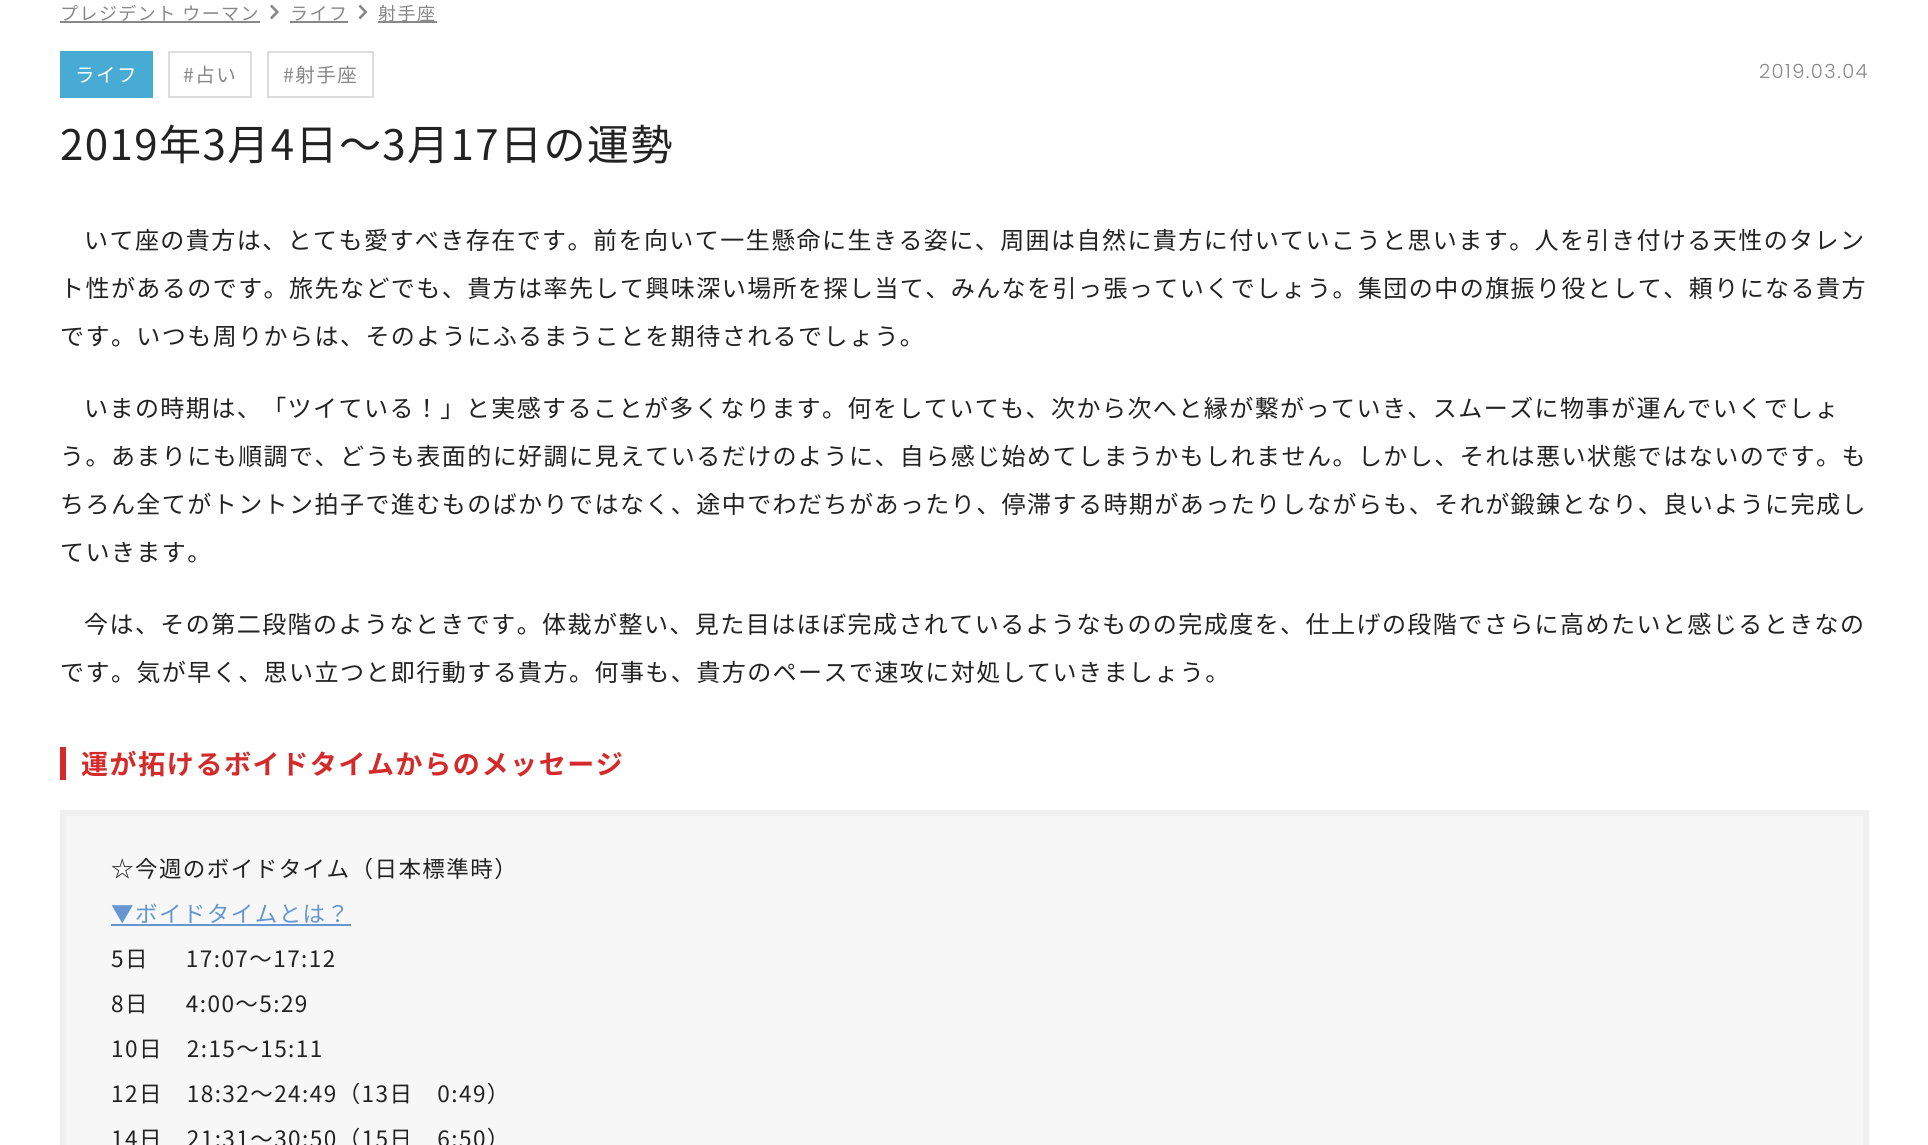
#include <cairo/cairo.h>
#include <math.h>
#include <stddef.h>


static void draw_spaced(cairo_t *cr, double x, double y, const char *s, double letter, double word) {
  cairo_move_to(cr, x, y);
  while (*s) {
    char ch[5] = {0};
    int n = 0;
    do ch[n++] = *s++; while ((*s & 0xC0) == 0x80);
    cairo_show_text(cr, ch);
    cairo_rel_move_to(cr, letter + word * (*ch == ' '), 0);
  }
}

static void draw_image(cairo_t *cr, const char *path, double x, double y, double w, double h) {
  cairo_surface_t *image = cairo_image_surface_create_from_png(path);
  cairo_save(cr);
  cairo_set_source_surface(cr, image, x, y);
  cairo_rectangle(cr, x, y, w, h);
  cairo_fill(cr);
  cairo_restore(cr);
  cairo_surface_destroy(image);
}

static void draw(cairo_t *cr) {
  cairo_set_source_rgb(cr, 1, 1, 1);
  cairo_paint(cr);
  cairo_set_source_rgb(cr, 136 / 255.0, 136 / 255.0, 136 / 255.0);
  cairo_rectangle(cr, 60, 21, 200, 2);
  cairo_fill(cr);
  draw_image(cr, "images/1.png", 270, 4, 9, 16);
  cairo_rectangle(cr, 290, 21, 58, 2);
  cairo_fill(cr);
  draw_image(cr, "images/2.png", 358, 4, 10, 16);
  cairo_rectangle(cr, 378, 21, 59, 2);
  cairo_fill(cr);
  cairo_set_source_rgb(cr, 72 / 255.0, 171 / 255.0, 212 / 255.0);
  cairo_rectangle(cr, 60, 51, 93, 47);
  cairo_fill(cr);
  cairo_rectangle(cr, 169, 52, 82, 45);
  cairo_set_source_rgb(cr, 221 / 255.0, 221 / 255.0, 221 / 255.0);
  cairo_stroke(cr);
  cairo_rectangle(cr, 268, 52, 105, 45);
  cairo_stroke(cr);
  cairo_set_source_rgb(cr, 213 / 255.0, 42 / 255.0, 42 / 255.0);
  cairo_rectangle(cr, 60, 747, 6, 33);
  cairo_fill(cr);
  cairo_set_source_rgb(cr, 247 / 255.0, 247 / 255.0, 247 / 255.0);
  cairo_rectangle(cr, 63, 813, 1803, 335);
  cairo_fill_preserve(cr);
  cairo_set_source_rgb(cr, 240 / 255.0, 240 / 255.0, 240 / 255.0);
  cairo_set_line_width(cr, 6);
  cairo_stroke(cr);
  cairo_set_source_rgb(cr, 102 / 255.0, 150 / 255.0, 210 / 255.0);
  cairo_rectangle(cr, 111, 924, 240, 2);
  cairo_fill(cr);
  cairo_select_font_face(cr, "Noto Sans JP", CAIRO_FONT_SLANT_NORMAL, CAIRO_FONT_WEIGHT_NORMAL);
  cairo_set_font_size(cr, 18);
  cairo_set_source_rgb(cr, 136 / 255.0, 136 / 255.0, 136 / 255.0);
  draw_spaced(cr, 60, 20, "プレジデント ウーマン", 1.45, 0);
  draw_spaced(cr, 290, 20, "ライフ", 1.45, 0);
  draw_spaced(cr, 378, 20, "射手座", 1.45, 0);
  cairo_set_font_size(cr, 19.5);
  cairo_set_source_rgb(cr, 1, 1, 1);
  draw_spaced(cr, 75, 82, "ライフ", 1.45, 0);
  cairo_set_source_rgb(cr, 136 / 255.0, 136 / 255.0, 136 / 255.0);
  draw_spaced(cr, 183, 82, "#占い", 1.45, 0);
  draw_spaced(cr, 283, 82, "#射手座", 1.45, 0);
  cairo_select_font_face(cr, "Poppins Light", CAIRO_FONT_SLANT_NORMAL, CAIRO_FONT_WEIGHT_NORMAL);
  draw_spaced(cr, 1759, 78, "2019.03.04", 1.45, 0);
  cairo_select_font_face(cr, "Noto Sans JP", CAIRO_FONT_SLANT_NORMAL, CAIRO_FONT_WEIGHT_NORMAL);
  cairo_set_font_size(cr, 42);
  cairo_set_source_rgb(cr, 34 / 255.0, 34 / 255.0, 34 / 255.0);
  draw_spaced(cr, 60, 160, "2019年3月4日～3月17日の運勢", 1.45, 0);
  cairo_set_font_size(cr, 24);
  draw_spaced(cr, 84, 249, "いて座の貴方は、とても愛すべき存在です。前を向いて一生懸命に生きる姿に、周囲は自然に貴方に付いていこうと思います。人を引き付ける天性のタレン", 1.45, 0);
  draw_spaced(cr, 60, 297, "ト性があるのです。旅先などでも、貴方は率先して興味深い場所を探し当て、みんなを引っ張っていくでしょう。集団の中の旗振り役として、頼りになる貴方", 1.45, 0);
  draw_spaced(cr, 60, 345, "です。いつも周りからは、そのようにふるまうことを期待されるでしょう。", 1.45, 0);
  draw_spaced(cr, 84, 417, "いまの時期は、「ツイている！」と実感することが多くなります。何をしていても、次から次へと縁が繋がっていき、スムーズに物事が運んでいくでしょ", 1.45, 0);
  draw_spaced(cr, 60, 465, "う。あまりにも順調で、どうも表面的に好調に見えているだけのように、自ら感じ始めてしまうかもしれません。しかし、それは悪い状態ではないのです。も", 1.45, 0);
  draw_spaced(cr, 60, 513, "ちろん全てがトントン拍子で進むものばかりではなく、途中でわだちがあったり、停滞する時期があったりしながらも、それが鍛錬となり、良いように完成し", 1.45, 0);
  draw_spaced(cr, 60, 561, "ていきます。", 1.45, 0);
  draw_spaced(cr, 84, 633, "今は、その第二段階のようなときです。体裁が整い、見た目はほぼ完成されているようなものの完成度を、仕上げの段階でさらに高めたいと感じるときなの", 1.45, 0);
  draw_spaced(cr, 60, 681, "です。気が早く、思い立つと即行動する貴方。何事も、貴方のペースで速攻に対処していきましょう。", 1.45, 0);
  cairo_select_font_face(cr, "Noto Sans JP", CAIRO_FONT_SLANT_NORMAL, CAIRO_FONT_WEIGHT_BOLD);
  cairo_set_font_size(cr, 27);
  cairo_set_source_rgb(cr, 213 / 255.0, 42 / 255.0, 42 / 255.0);
  draw_spaced(cr, 81, 774, "運が拓けるボイドタイムからのメッセージ", 1.6, 0);
  cairo_select_font_face(cr, "Noto Sans JP", CAIRO_FONT_SLANT_NORMAL, CAIRO_FONT_WEIGHT_NORMAL);
  cairo_set_font_size(cr, 22.5);
  cairo_set_source_rgb(cr, 34 / 255.0, 34 / 255.0, 34 / 255.0);
  draw_spaced(cr, 111, 877, "☆今週のボイドタイム（日本標準時）", 1.45, 0);
  cairo_set_source_rgb(cr, 102 / 255.0, 150 / 255.0, 210 / 255.0);
  draw_spaced(cr, 111, 922, "▼ボイドタイムとは？", 1.45, 0);
  cairo_set_source_rgb(cr, 34 / 255.0, 34 / 255.0, 34 / 255.0);
  draw_spaced(cr, 111, 967, "5日　  17:07～17:12", 1.45, 0);
  draw_spaced(cr, 111, 1012, "8日　  4:00～5:29", 1.45, 0);
  draw_spaced(cr, 111, 1057, "10日　2:15～15:11", 1.45, 0);
  draw_spaced(cr, 111, 1102, "12日　18:32～24:49（13日　0:49）", 1.45, 0);
  draw_spaced(cr, 111, 1147, "14日　21:31～30:50（15日　6:50）", 1.45, 0);
}

int main(void) {
  cairo_surface_t *surface = cairo_image_surface_create(CAIRO_FORMAT_RGB24, 1928, 1145);
  cairo_t *cr = cairo_create(surface);
  cairo_font_options_t *options = cairo_font_options_create();
  cairo_font_options_set_hint_metrics(options, CAIRO_HINT_METRICS_OFF);
  cairo_font_options_set_hint_style(options, CAIRO_HINT_STYLE_NONE);
  cairo_set_font_options(cr, options);
  cairo_set_miter_limit(cr, 4);
  draw(cr);
  cairo_surface_write_to_png(surface, "out.png");
  cairo_font_options_destroy(options);
  cairo_destroy(cr);
  cairo_surface_destroy(surface);
  return 0;
}
